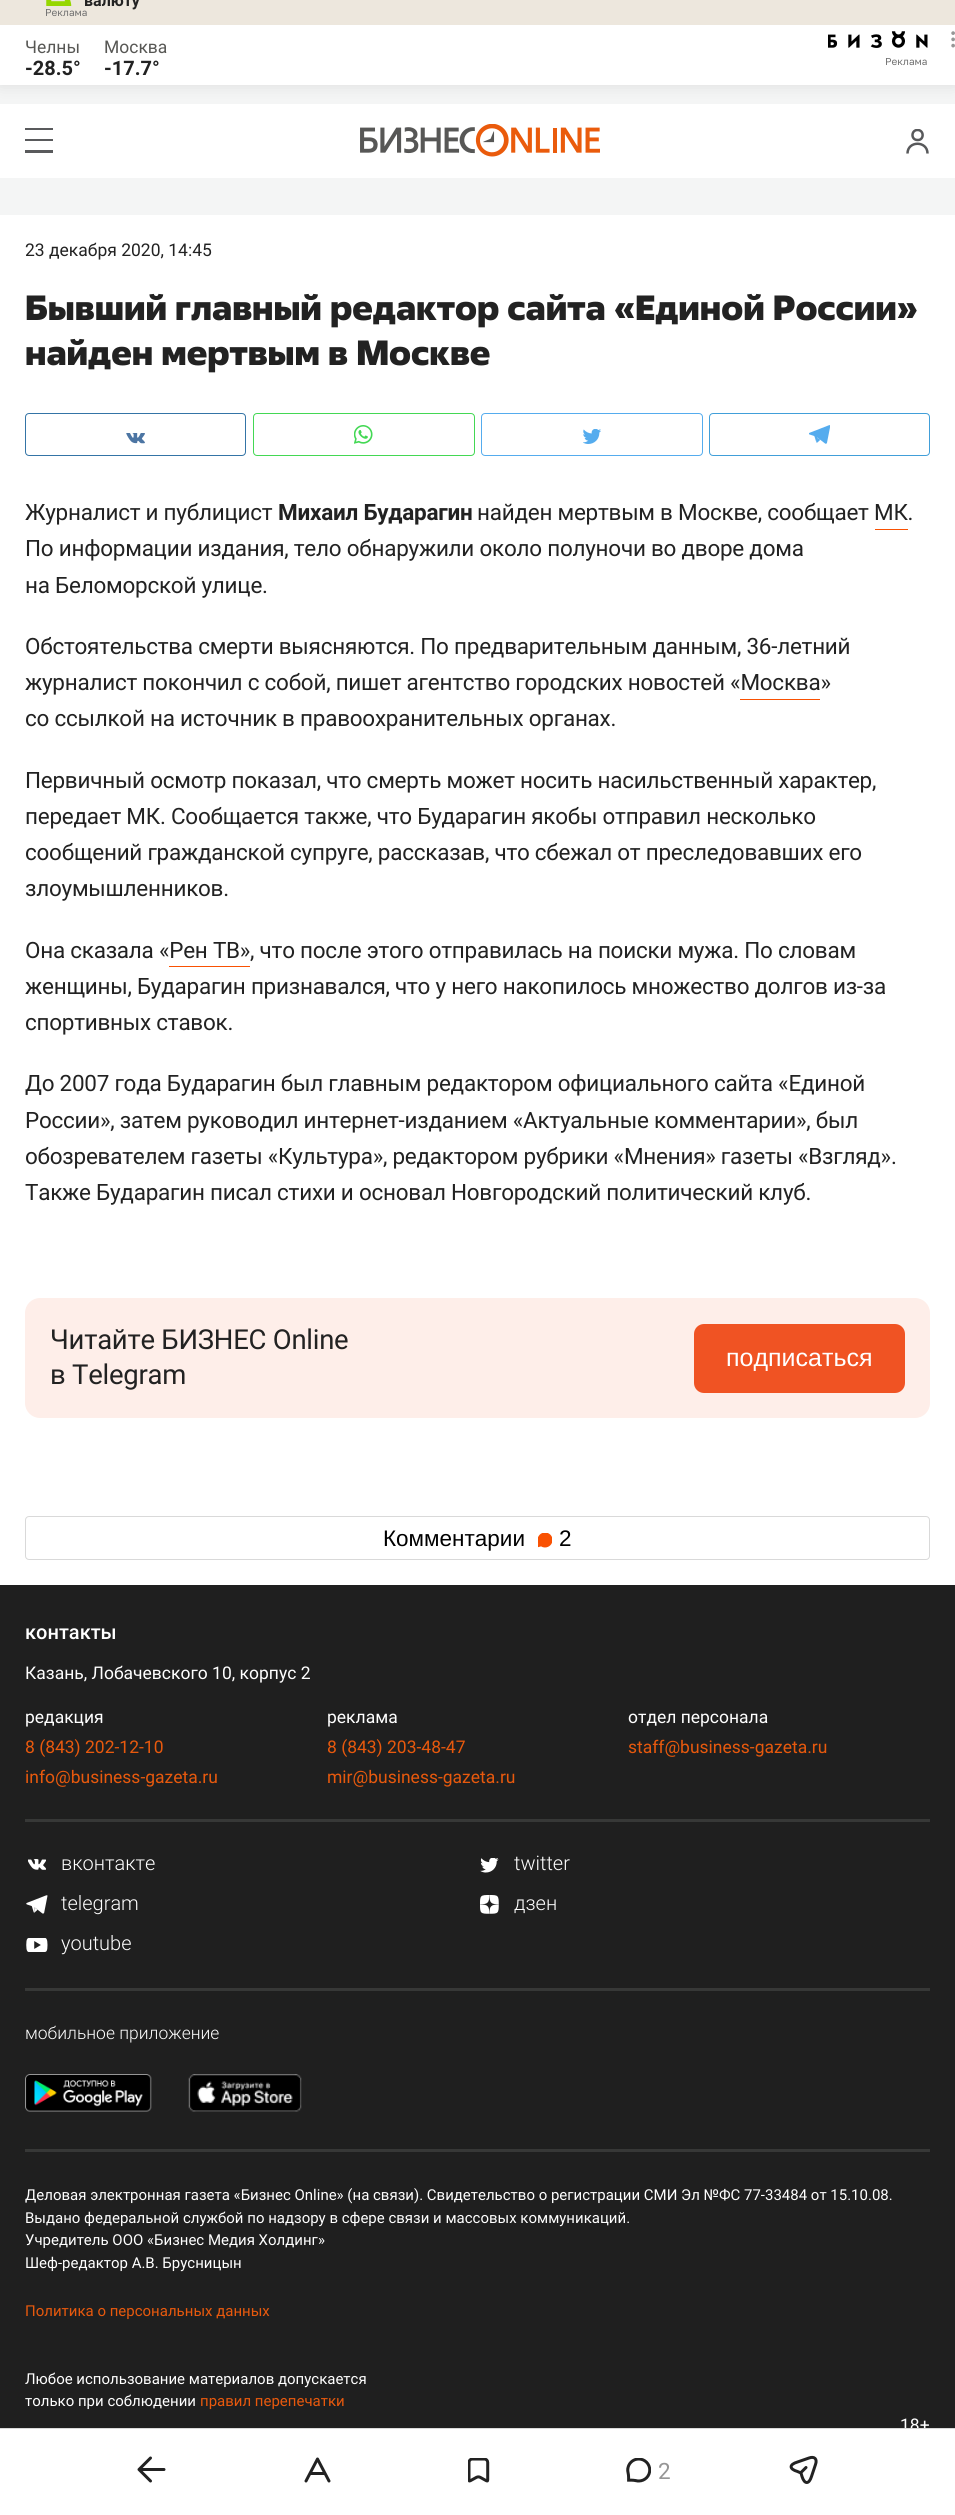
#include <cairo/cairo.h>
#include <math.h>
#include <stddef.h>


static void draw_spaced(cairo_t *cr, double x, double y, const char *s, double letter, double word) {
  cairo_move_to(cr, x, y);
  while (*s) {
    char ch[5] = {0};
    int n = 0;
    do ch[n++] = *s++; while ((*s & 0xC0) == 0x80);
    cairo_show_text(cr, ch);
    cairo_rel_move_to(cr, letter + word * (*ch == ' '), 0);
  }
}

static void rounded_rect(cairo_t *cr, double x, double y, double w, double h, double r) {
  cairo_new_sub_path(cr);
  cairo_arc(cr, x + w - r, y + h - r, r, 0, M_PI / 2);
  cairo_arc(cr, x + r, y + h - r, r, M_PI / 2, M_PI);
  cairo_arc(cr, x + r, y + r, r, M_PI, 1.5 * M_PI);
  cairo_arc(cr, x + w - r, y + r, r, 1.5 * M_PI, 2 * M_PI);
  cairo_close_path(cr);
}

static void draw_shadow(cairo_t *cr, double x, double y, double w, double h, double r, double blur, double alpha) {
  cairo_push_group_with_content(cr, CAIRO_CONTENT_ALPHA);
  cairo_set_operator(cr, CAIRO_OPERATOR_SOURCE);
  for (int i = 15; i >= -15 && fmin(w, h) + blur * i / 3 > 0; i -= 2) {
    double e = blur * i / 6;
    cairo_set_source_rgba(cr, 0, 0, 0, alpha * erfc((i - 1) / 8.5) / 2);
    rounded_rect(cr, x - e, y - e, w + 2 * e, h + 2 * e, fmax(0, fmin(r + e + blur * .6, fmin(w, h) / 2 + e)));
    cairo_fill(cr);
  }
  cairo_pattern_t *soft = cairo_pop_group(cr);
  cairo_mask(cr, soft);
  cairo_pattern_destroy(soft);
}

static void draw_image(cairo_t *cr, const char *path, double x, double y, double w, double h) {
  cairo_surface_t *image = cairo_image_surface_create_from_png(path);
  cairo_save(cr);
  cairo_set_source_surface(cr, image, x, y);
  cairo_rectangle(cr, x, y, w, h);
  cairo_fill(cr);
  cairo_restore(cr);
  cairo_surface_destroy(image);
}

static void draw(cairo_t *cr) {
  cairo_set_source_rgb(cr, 244 / 255.0, 245 / 255.0, 245 / 255.0);
  cairo_paint(cr);
  cairo_set_source_rgb(cr, 0, 0, 0);
  draw_shadow(cr, 0, 25, 955, 60, 0, 7.5, 0.1);
  cairo_set_source_rgb(cr, 237 / 255.0, 231 / 255.0, 221 / 255.0);
  cairo_rectangle(cr, 0, 0, 955, 25);
  cairo_fill(cr);
  draw_image(cr, "images/1.png", 46, 0, 26, 6);
  cairo_set_source_rgb(cr, 1, 1, 1);
  cairo_rectangle(cr, 0, 25, 955, 60);
  cairo_fill(cr);
  draw_image(cr, "images/2.png", 828, 31, 100, 17);
  draw_image(cr, "images/3.png", 951, 31, 4, 17);
  cairo_rectangle(cr, 0, 104, 955, 74);
  cairo_fill(cr);
  cairo_set_source_rgb(cr, 89 / 255.0, 90 / 255.0, 92 / 255.0);
  cairo_rectangle(cr, 25, 128, 28, 25);
  cairo_fill(cr);
  cairo_set_source_rgb(cr, 1, 1, 1);
  cairo_rectangle(cr, 25, 130, 28, 9);
  cairo_fill(cr);
  cairo_rectangle(cr, 25, 141, 28, 9);
  cairo_fill(cr);
  draw_image(cr, "images/4.png", 360, 124, 240, 33);
  cairo_new_path(cr);
  cairo_move_to(cr, 927.5, 153.5);
  cairo_curve_to(cr, 927.5, 140.5, 907.5, 140.5, 907.5, 153.5);
  cairo_set_source_rgb(cr, 88 / 255.0, 89 / 255.0, 91 / 255.0);
  cairo_set_line_width(cr, 2.5);
  cairo_stroke(cr);
  cairo_save(cr);
  cairo_rectangle(cr, 906, 129, 23, 25);
  cairo_clip(cr);
  cairo_new_path(cr);
  cairo_move_to(cr, 917.5, 140);
  cairo_curve_to(cr, 924, 140.5, 924.5, 130.5, 918, 130);
  cairo_curve_to(cr, 911, 129.5, 910.5, 140, 917.5, 140);
  cairo_close_path(cr);
  cairo_stroke(cr);
  cairo_restore(cr);
  cairo_set_source_rgb(cr, 1, 1, 1);
  cairo_rectangle(cr, 0, 215, 955, 1370);
  cairo_fill(cr);
  rounded_rect(cr, 25.5, 413.5, 220, 42, 3.5);
  cairo_set_source_rgb(cr, 52 / 255.0, 116 / 255.0, 166 / 255.0);
  cairo_set_line_width(cr, 1);
  cairo_stroke(cr);
  draw_image(cr, "images/5.png", 126, 433, 19, 11);
  rounded_rect(cr, 253.5, 413.5, 221, 42, 3.5);
  cairo_set_source_rgb(cr, 67 / 255.0, 216 / 255.0, 84 / 255.0);
  cairo_stroke(cr);
  draw_image(cr, "images/6.png", 354, 425, 19, 19);
  rounded_rect(cr, 481.5, 413.5, 221, 42, 3.5);
  cairo_set_source_rgb(cr, 85 / 255.0, 172 / 255.0, 238 / 255.0);
  cairo_stroke(cr);
  draw_image(cr, "images/7.png", 583, 429, 18, 15);
  rounded_rect(cr, 709.5, 413.5, 220, 42, 3.5);
  cairo_set_source_rgb(cr, 65 / 255.0, 159 / 255.0, 217 / 255.0);
  cairo_stroke(cr);
  draw_image(cr, "images/8.png", 809, 425, 21, 19);
  cairo_set_source_rgb(cr, 249 / 255.0, 81 / 255.0, 2 / 255.0);
  cairo_rectangle(cr, 875, 529, 33, 1);
  cairo_fill(cr);
  cairo_rectangle(cr, 740, 699, 80, 1);
  cairo_fill(cr);
  cairo_rectangle(cr, 169, 966, 81, 1);
  cairo_fill(cr);
  cairo_set_source_rgb(cr, 254 / 255.0, 238 / 255.0, 233 / 255.0);
  rounded_rect(cr, 25, 1298, 905, 120, 15);
  cairo_fill(cr);
  cairo_set_source_rgb(cr, 240 / 255.0, 83 / 255.0, 35 / 255.0);
  rounded_rect(cr, 694, 1324, 211, 69, 10);
  cairo_fill(cr);
  rounded_rect(cr, 25.5, 1516.5, 904, 43, 3.5);
  cairo_set_source_rgb(cr, 217 / 255.0, 217 / 255.0, 217 / 255.0);
  cairo_stroke(cr);
  draw_image(cr, "images/9.png", 538, 1533, 14, 15);
  cairo_set_source_rgb(cr, 1, 1, 1);
  cairo_rectangle(cr, 0, 2429, 955, 86);
  cairo_fill(cr);
  cairo_new_path(cr);
  cairo_move_to(cr, 150.5, 2458);
  cairo_line_to(cr, 139, 2469.5);
  cairo_line_to(cr, 150.5, 2481);
  cairo_move_to(cr, 164, 2469.5);
  cairo_line_to(cr, 139, 2469.5);
  cairo_set_source_rgb(cr, 34 / 255.0, 34 / 255.0, 34 / 255.0);
  cairo_set_line_width(cr, 3);
  cairo_set_line_cap(cr, CAIRO_LINE_CAP_ROUND);
  cairo_set_line_join(cr, CAIRO_LINE_JOIN_ROUND);
  cairo_stroke(cr);
  cairo_new_path(cr);
  cairo_move_to(cr, 306, 2481);
  cairo_line_to(cr, 317.5, 2459);
  cairo_line_to(cr, 329, 2481);
  cairo_move_to(cr, 310.5, 2473.5);
  cairo_line_to(cr, 324.5, 2473.5);
  cairo_stroke(cr);
  draw_image(cr, "images/10.png", 468, 2458, 22, 25);
  draw_image(cr, "images/11.png", 626, 2458, 25, 25);
  cairo_new_path(cr);
  cairo_move_to(cr, 801, 2472.5);
  cairo_line_to(cr, 806, 2467.5);
  cairo_move_to(cr, 797.5, 2462);
  cairo_line_to(cr, 809, 2458);
  cairo_curve_to(cr, 814.5, 2456, 817.5, 2459, 815.5, 2464.5);
  cairo_line_to(cr, 811.5, 2476.5);
  cairo_curve_to(cr, 809, 2484.5, 804.5, 2484.5, 802, 2476.5);
  cairo_line_to(cr, 801, 2473);
  cairo_line_to(cr, 797.5, 2471.5);
  cairo_curve_to(cr, 789, 2469, 789, 2464.5, 797.5, 2462);
  cairo_close_path(cr);
  cairo_stroke(cr);
  cairo_set_source_rgb(cr, 31 / 255.0, 31 / 255.0, 31 / 255.0);
  cairo_rectangle(cr, 0, 1585, 955, 843);
  cairo_fill(cr);
  cairo_set_source_rgb(cr, 55 / 255.0, 56 / 255.0, 55 / 255.0);
  cairo_rectangle(cr, 25, 1819, 905, 3);
  cairo_fill(cr);
  cairo_rectangle(cr, 25, 1988, 905, 3);
  cairo_fill(cr);
  draw_image(cr, "images/12.png", 28, 1859, 18, 11);
  draw_image(cr, "images/13.png", 480, 1858, 19, 15);
  draw_image(cr, "images/14.png", 26, 1895, 22, 19);
  draw_image(cr, "images/15.png", 480, 1895, 19, 19);
  draw_image(cr, "images/16.png", 26, 1938, 22, 14);
  cairo_rectangle(cr, 25, 2149, 905, 3);
  cairo_fill(cr);
  draw_image(cr, "images/17.png", 25, 2074, 127, 38);
  draw_image(cr, "images/18.png", 188, 2074, 114, 38);
  cairo_select_font_face(cr, "Roboto", CAIRO_FONT_SLANT_NORMAL, CAIRO_FONT_WEIGHT_BOLD);
  cairo_set_font_size(cr, 16);
  cairo_set_source_rgb(cr, 34 / 255.0, 34 / 255.0, 34 / 255.0);
  cairo_move_to(cr, 84, 6);
  cairo_show_text(cr, "валюту");
  cairo_select_font_face(cr, "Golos", CAIRO_FONT_SLANT_NORMAL, CAIRO_FONT_WEIGHT_NORMAL);
  cairo_set_font_size(cr, 10);
  cairo_set_source_rgb(cr, 113 / 255.0, 113 / 255.0, 113 / 255.0);
  cairo_move_to(cr, 45, 16);
  cairo_show_text(cr, "Реклама");
  cairo_select_font_face(cr, "Roboto", CAIRO_FONT_SLANT_NORMAL, CAIRO_FONT_WEIGHT_NORMAL);
  cairo_set_font_size(cr, 17.5);
  cairo_set_source_rgb(cr, 87 / 255.0, 87 / 255.0, 84 / 255.0);
  cairo_move_to(cr, 25, 53);
  cairo_show_text(cr, "Челны");
  cairo_select_font_face(cr, "Roboto", CAIRO_FONT_SLANT_NORMAL, CAIRO_FONT_WEIGHT_BOLD);
  cairo_set_font_size(cr, 20);
  cairo_set_source_rgb(cr, 34 / 255.0, 34 / 255.0, 34 / 255.0);
  cairo_move_to(cr, 25, 75);
  cairo_show_text(cr, "-28.5°");
  cairo_select_font_face(cr, "Roboto", CAIRO_FONT_SLANT_NORMAL, CAIRO_FONT_WEIGHT_NORMAL);
  cairo_set_font_size(cr, 17.5);
  cairo_set_source_rgb(cr, 87 / 255.0, 87 / 255.0, 84 / 255.0);
  cairo_move_to(cr, 104, 53);
  cairo_show_text(cr, "Москва");
  cairo_select_font_face(cr, "Roboto", CAIRO_FONT_SLANT_NORMAL, CAIRO_FONT_WEIGHT_BOLD);
  cairo_set_font_size(cr, 20);
  cairo_set_source_rgb(cr, 34 / 255.0, 34 / 255.0, 34 / 255.0);
  cairo_move_to(cr, 104, 75);
  cairo_show_text(cr, "-17.7°");
  cairo_select_font_face(cr, "Golos", CAIRO_FONT_SLANT_NORMAL, CAIRO_FONT_WEIGHT_NORMAL);
  cairo_set_font_size(cr, 10);
  cairo_set_source_rgb(cr, 113 / 255.0, 113 / 255.0, 113 / 255.0);
  cairo_move_to(cr, 885, 65);
  cairo_show_text(cr, "Реклама");
  cairo_select_font_face(cr, "Roboto", CAIRO_FONT_SLANT_NORMAL, CAIRO_FONT_WEIGHT_NORMAL);
  cairo_set_font_size(cr, 17.5);
  cairo_set_source_rgb(cr, 34 / 255.0, 34 / 255.0, 34 / 255.0);
  cairo_move_to(cr, 25, 256);
  cairo_show_text(cr, "23 декабря 2020, 14:45");
  cairo_select_font_face(cr, "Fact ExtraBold", CAIRO_FONT_SLANT_NORMAL, CAIRO_FONT_WEIGHT_NORMAL);
  cairo_set_font_size(cr, 35);
  cairo_move_to(cr, 25, 320);
  cairo_show_text(cr, "Бывший главный редактор сайта «Единой России»");
  cairo_move_to(cr, 25, 365);
  cairo_show_text(cr, "найден мертвым в Москве");
  cairo_select_font_face(cr, "Roboto", CAIRO_FONT_SLANT_NORMAL, CAIRO_FONT_WEIGHT_NORMAL);
  cairo_set_font_size(cr, 22.5);
  draw_spaced(cr, 25, 520, "Журналист и публицист", -0.25, 0);
  cairo_select_font_face(cr, "Roboto", CAIRO_FONT_SLANT_NORMAL, CAIRO_FONT_WEIGHT_BOLD);
  draw_spaced(cr, 278, 520, "Михаил Бударагин", -0.25, 0);
  cairo_select_font_face(cr, "Roboto", CAIRO_FONT_SLANT_NORMAL, CAIRO_FONT_WEIGHT_NORMAL);
  draw_spaced(cr, 477, 520, "найден мертвым в Москве, сообщает МК.", -0.25, 0);
  draw_spaced(cr, 25, 556, "По информации издания, тело обнаружили около полуночи во дворе дома", -0.25, 0);
  draw_spaced(cr, 25, 593, "на Беломорской улице.", -0.25, 0);
  draw_spaced(cr, 25, 654, "Обстоятельства смерти выясняются. По предварительным данным, 36-летний", -0.25, 0);
  draw_spaced(cr, 25, 690, "журналист покончил с собой, пишет агентство городских новостей «Москва»", -0.25, 0);
  draw_spaced(cr, 25, 726, "со ссылкой на источник в правоохранительных органах.", -0.25, 0);
  draw_spaced(cr, 25, 788, "Первичный осмотр показал, что смерть может носить насильственный характер,", -0.25, 0);
  draw_spaced(cr, 25, 824, "передает МК. Сообщается также, что Бударагин якобы отправил несколько", -0.25, 0);
  draw_spaced(cr, 25, 860, "сообщений гражданской супруге, рассказав, что сбежал от преследовавших его", -0.25, 0);
  draw_spaced(cr, 25, 896, "злоумышленников.", -0.25, 0);
  draw_spaced(cr, 25, 958, "Она сказала «Рен ТВ», что после этого отправилась на поиски мужа. По словам", -0.25, 0);
  draw_spaced(cr, 25, 994, "женщины, Бударагин признавался, что у него накопилось множество долгов из-за", -0.25, 0);
  draw_spaced(cr, 25, 1030, "спортивных ставок.", -0.25, 0);
  draw_spaced(cr, 25, 1091, "До 2007 года Бударагин был главным редактором официального сайта «Единой", -0.25, 0);
  draw_spaced(cr, 25, 1128, "России», затем руководил интернет-изданием «Актуальные комментарии», был", -0.25, 0);
  draw_spaced(cr, 25, 1164, "обозревателем газеты «Культура», редактором рубрики «Мнения» газеты «Взгляд».", -0.25, 0);
  draw_spaced(cr, 25, 1200, "Также Бударагин писал стихи и основал Новгородский политический клуб.", -0.25, 0);
  cairo_set_font_size(cr, 27.5);
  draw_spaced(cr, 50, 1349, "Читайте БИЗНЕС Online", -0.25, 0);
  draw_spaced(cr, 50, 1384, "в Telegram", -0.25, 0);
  cairo_select_font_face(cr, "Liberation Sans", CAIRO_FONT_SLANT_NORMAL, CAIRO_FONT_WEIGHT_NORMAL);
  cairo_set_font_size(cr, 25);
  cairo_set_source_rgb(cr, 1, 1, 1);
  cairo_move_to(cr, 726, 1366);
  cairo_show_text(cr, "подписаться");
  cairo_set_font_size(cr, 22.5);
  cairo_set_source_rgb(cr, 0, 0, 0);
  cairo_move_to(cr, 383, 1546);
  cairo_show_text(cr, "Комментарии");
  cairo_move_to(cr, 559, 1546);
  cairo_show_text(cr, "2");
  cairo_select_font_face(cr, "Roboto", CAIRO_FONT_SLANT_NORMAL, CAIRO_FONT_WEIGHT_NORMAL);
  cairo_set_source_rgb(cr, 150 / 255.0, 150 / 255.0, 150 / 255.0);
  cairo_move_to(cr, 658, 2479);
  cairo_show_text(cr, "2");
  cairo_select_font_face(cr, "Roboto Medium", CAIRO_FONT_SLANT_NORMAL, CAIRO_FONT_WEIGHT_NORMAL);
  cairo_set_font_size(cr, 20);
  cairo_set_source_rgb(cr, 1, 1, 1);
  cairo_move_to(cr, 25, 1639);
  cairo_show_text(cr, "контакты");
  cairo_select_font_face(cr, "Roboto", CAIRO_FONT_SLANT_NORMAL, CAIRO_FONT_WEIGHT_NORMAL);
  cairo_set_font_size(cr, 17.5);
  cairo_move_to(cr, 25, 1679);
  cairo_show_text(cr, "Казань, Лобачевского 10, корпус 2");
  cairo_move_to(cr, 25, 1723);
  cairo_show_text(cr, "редакция");
  cairo_set_source_rgb(cr, 232 / 255.0, 89 / 255.0, 13 / 255.0);
  cairo_move_to(cr, 25, 1753);
  cairo_show_text(cr, "8 (843) 202-12-10");
  cairo_move_to(cr, 25, 1783);
  cairo_show_text(cr, "info@business-gazeta.ru");
  cairo_set_source_rgb(cr, 1, 1, 1);
  cairo_move_to(cr, 327, 1723);
  cairo_show_text(cr, "реклама");
  cairo_set_source_rgb(cr, 232 / 255.0, 89 / 255.0, 13 / 255.0);
  cairo_move_to(cr, 327, 1753);
  cairo_show_text(cr, "8 (843) 203-48-47");
  cairo_move_to(cr, 327, 1783);
  cairo_show_text(cr, "mir@business-gazeta.ru");
  cairo_set_source_rgb(cr, 1, 1, 1);
  cairo_move_to(cr, 628, 1723);
  cairo_show_text(cr, "отдел персонала");
  cairo_set_source_rgb(cr, 232 / 255.0, 89 / 255.0, 13 / 255.0);
  cairo_move_to(cr, 628, 1753);
  cairo_show_text(cr, "staff@business-gazeta.ru");
  cairo_select_font_face(cr, "Roboto Light", CAIRO_FONT_SLANT_NORMAL, CAIRO_FONT_WEIGHT_NORMAL);
  cairo_set_font_size(cr, 20);
  cairo_set_source_rgb(cr, 1, 1, 1);
  cairo_move_to(cr, 61, 1870);
  cairo_show_text(cr, "вконтакте");
  cairo_move_to(cr, 514, 1870);
  cairo_show_text(cr, "twitter");
  cairo_move_to(cr, 61, 1910);
  cairo_show_text(cr, "telegram");
  cairo_move_to(cr, 514, 1910);
  cairo_show_text(cr, "дзен");
  cairo_move_to(cr, 61, 1950);
  cairo_show_text(cr, "youtube");
  cairo_set_font_size(cr, 17.5);
  cairo_move_to(cr, 25, 2039);
  cairo_show_text(cr, "мобильное приложение");
  cairo_select_font_face(cr, "Roboto", CAIRO_FONT_SLANT_NORMAL, CAIRO_FONT_WEIGHT_NORMAL);
  cairo_set_font_size(cr, 15);
  cairo_move_to(cr, 25, 2200);
  cairo_show_text(cr, "Деловая электронная газета «Бизнес Online» (на связи). Свидетельство о регистрации СМИ Эл №ФС 77-33484 от 15.10.08.");
  cairo_move_to(cr, 25, 2223);
  cairo_show_text(cr, "Выдано федеральной службой по надзору в сфере связи и массовых коммуникаций.");
  cairo_move_to(cr, 25, 2245);
  cairo_show_text(cr, "Учредитель ООО «Бизнес Медия Холдинг»");
  cairo_move_to(cr, 25, 2268);
  cairo_show_text(cr, "Шеф-редактор А.В. Брусницын");
  cairo_set_source_rgb(cr, 232 / 255.0, 89 / 255.0, 13 / 255.0);
  cairo_move_to(cr, 25, 2316);
  cairo_show_text(cr, "Политика о персональных данных");
  cairo_set_source_rgb(cr, 1, 1, 1);
  cairo_move_to(cr, 25, 2384);
  cairo_show_text(cr, "Любое использование материалов допускается");
  cairo_move_to(cr, 25, 2406);
  cairo_show_text(cr, "только при соблюдении");
  cairo_set_source_rgb(cr, 232 / 255.0, 89 / 255.0, 13 / 255.0);
  cairo_move_to(cr, 200, 2406);
  cairo_show_text(cr, "правил перепечатки");
  cairo_set_font_size(cr, 17.5);
  cairo_set_source_rgb(cr, 1, 1, 1);
  cairo_move_to(cr, 900, 2431);
  cairo_show_text(cr, "18+");
  cairo_set_source_rgb(cr, 217 / 255.0, 217 / 255.0, 217 / 255.0);
  cairo_rectangle(cr, 0, 2428, 955, 1);
  cairo_fill(cr);
}

int main(void) {
  cairo_surface_t *surface = cairo_image_surface_create(CAIRO_FORMAT_RGB24, 955, 2515);
  cairo_t *cr = cairo_create(surface);
  cairo_font_options_t *options = cairo_font_options_create();
  cairo_font_options_set_hint_metrics(options, CAIRO_HINT_METRICS_OFF);
  cairo_font_options_set_hint_style(options, CAIRO_HINT_STYLE_NONE);
  cairo_set_font_options(cr, options);
  cairo_set_miter_limit(cr, 4);
  draw(cr);
  cairo_surface_write_to_png(surface, "out.png");
  cairo_font_options_destroy(options);
  cairo_destroy(cr);
  cairo_surface_destroy(surface);
  return 0;
}
